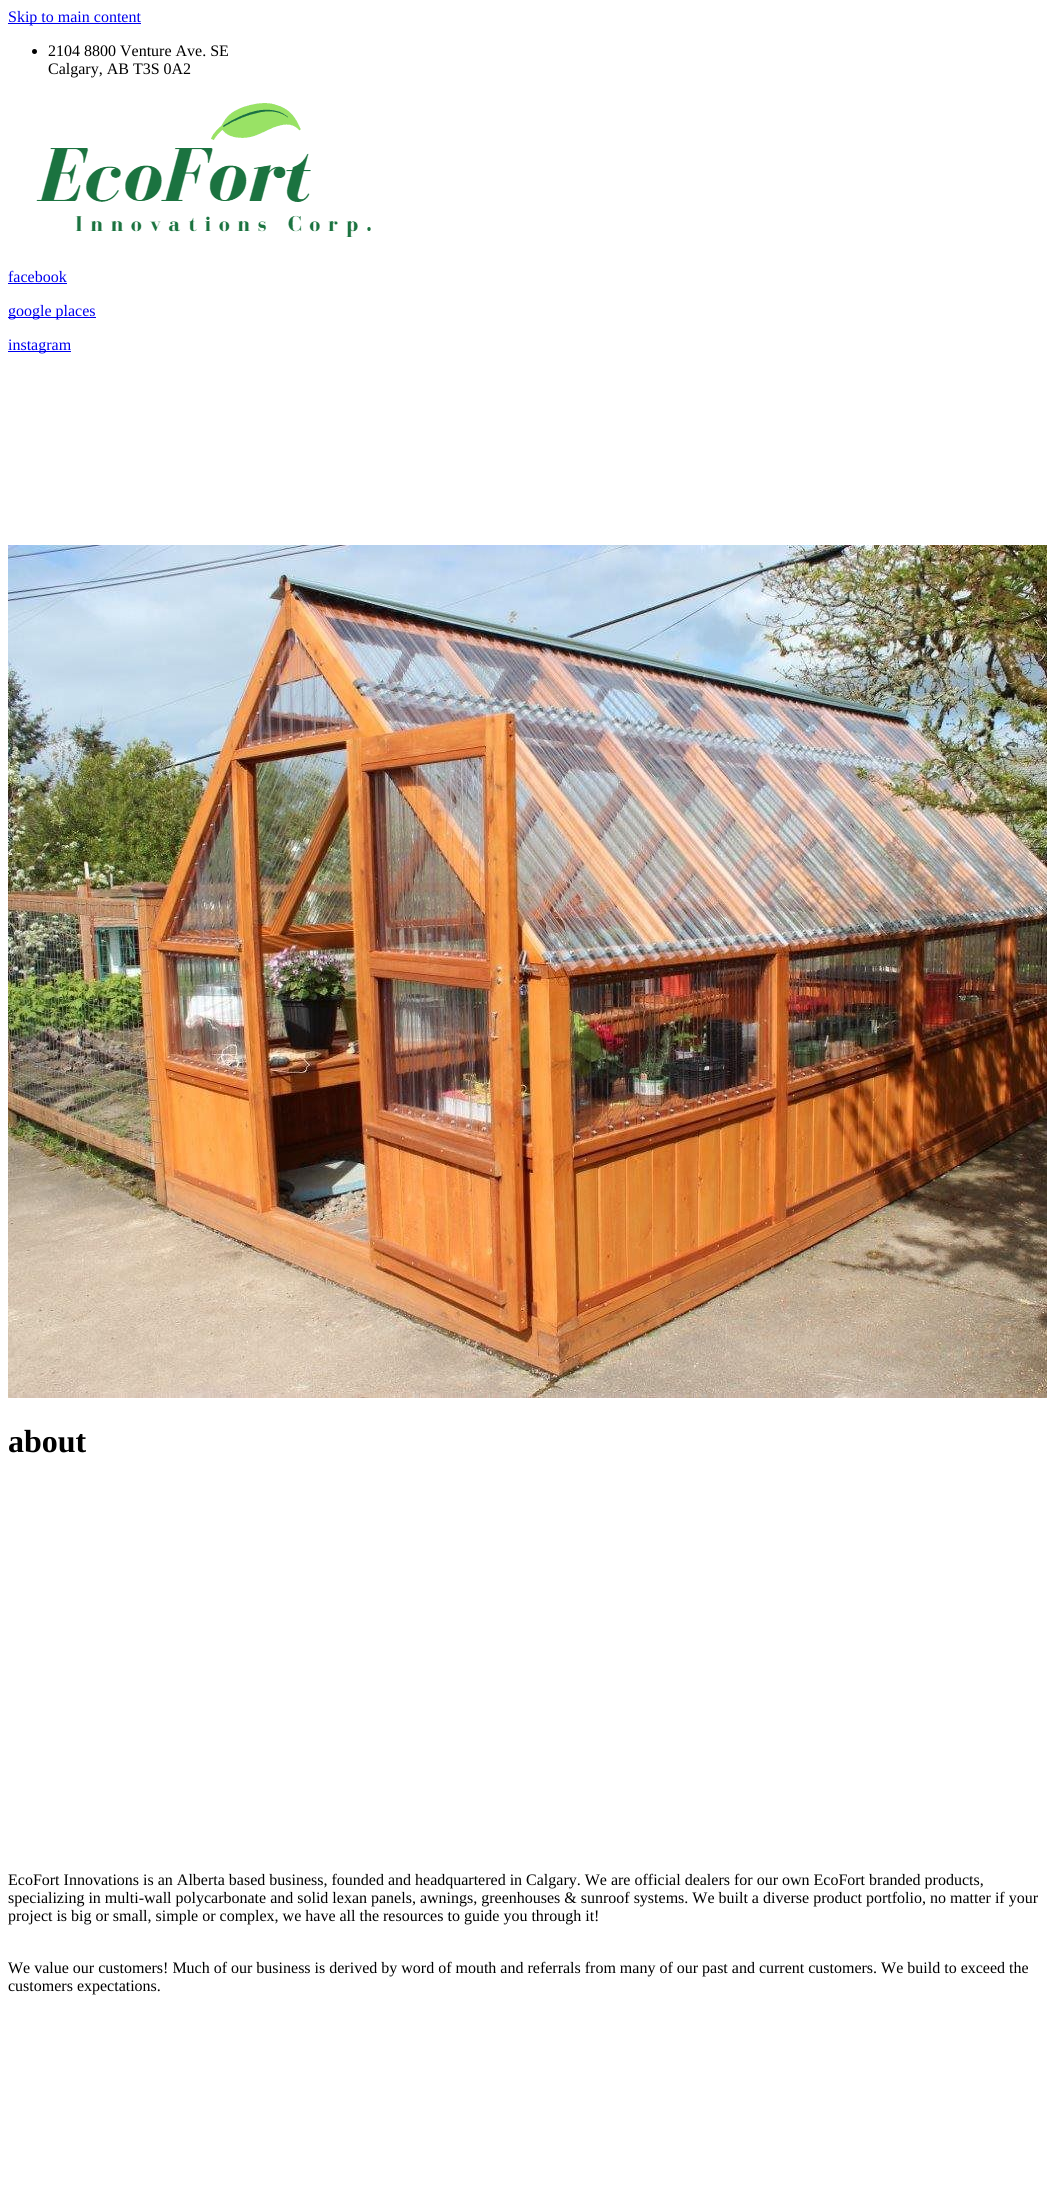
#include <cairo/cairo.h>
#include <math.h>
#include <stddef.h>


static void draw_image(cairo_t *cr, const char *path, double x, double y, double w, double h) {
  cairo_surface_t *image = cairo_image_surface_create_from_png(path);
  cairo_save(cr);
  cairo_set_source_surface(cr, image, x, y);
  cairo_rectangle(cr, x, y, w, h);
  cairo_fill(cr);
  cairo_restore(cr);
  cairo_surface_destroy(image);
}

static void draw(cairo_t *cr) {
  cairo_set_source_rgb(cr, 1, 1, 1);
  cairo_paint(cr);
  cairo_set_source_rgb(cr, 0, 0, 238 / 255.0);
  cairo_rectangle(cr, 8, 23, 133, 1);
  cairo_fill(cr);
  cairo_set_source_rgb(cr, 0, 0, 0);
  cairo_arc(cr, 34.5, 51.5, 2.5, 0, 2 * M_PI);
  cairo_fill(cr);
  draw_image(cr, "images/1.png", 36, 103, 335, 134);
  cairo_set_source_rgb(cr, 0, 0, 238 / 255.0);
  cairo_rectangle(cr, 8, 283, 59, 1);
  cairo_fill(cr);
  cairo_rectangle(cr, 8, 317, 88, 1);
  cairo_fill(cr);
  cairo_rectangle(cr, 8, 351, 63, 1);
  cairo_fill(cr);
  draw_image(cr, "images/2.png", 8, 545, 1039, 853);
  cairo_select_font_face(cr, "Liberation Serif", CAIRO_FONT_SLANT_NORMAL, CAIRO_FONT_WEIGHT_NORMAL);
  cairo_set_font_size(cr, 16);
  cairo_move_to(cr, 8, 22);
  cairo_show_text(cr, "Skip to main content");
  cairo_set_source_rgb(cr, 0, 0, 0);
  cairo_move_to(cr, 48, 56);
  cairo_show_text(cr, "2104 8800 Venture Ave. SE");
  cairo_move_to(cr, 48, 74);
  cairo_show_text(cr, "Calgary, AB T3S 0A2");
  cairo_set_source_rgb(cr, 0, 0, 238 / 255.0);
  cairo_move_to(cr, 8, 282);
  cairo_show_text(cr, "facebook");
  cairo_move_to(cr, 8, 316);
  cairo_show_text(cr, "google places");
  cairo_move_to(cr, 8, 350);
  cairo_show_text(cr, "instagram");
  cairo_select_font_face(cr, "Liberation Serif", CAIRO_FONT_SLANT_NORMAL, CAIRO_FONT_WEIGHT_BOLD);
  cairo_set_font_size(cr, 32);
  cairo_set_source_rgb(cr, 0, 0, 0);
  cairo_move_to(cr, 8, 1452);
  cairo_show_text(cr, "about");
  cairo_select_font_face(cr, "Liberation Serif", CAIRO_FONT_SLANT_NORMAL, CAIRO_FONT_WEIGHT_NORMAL);
  cairo_set_font_size(cr, 16);
  cairo_move_to(cr, 8, 1885);
  cairo_show_text(cr, "EcoFort Innovations is an Alberta based business, founded and headquartered in Calgary. We are official dealers for our own EcoFort branded products,");
  cairo_move_to(cr, 8, 1903);
  cairo_show_text(cr, "specializing in multi-wall polycarbonate and solid lexan panels, awnings, greenhouses & sunroof systems. We built a diverse product portfolio, no matter if your");
  cairo_move_to(cr, 8, 1921);
  cairo_show_text(cr, "project is big or small, simple or complex, we have all the resources to guide you through it!");
  cairo_move_to(cr, 8, 1973);
  cairo_show_text(cr, "We value our customers! Much of our business is derived by word of mouth and referrals from many of our past and current customers. We build to exceed the");
  cairo_move_to(cr, 8, 1991);
  cairo_show_text(cr, "customers expectations.");
}

int main(void) {
  cairo_surface_t *surface = cairo_image_surface_create(CAIRO_FORMAT_RGB24, 1047, 2186);
  cairo_t *cr = cairo_create(surface);
  cairo_font_options_t *options = cairo_font_options_create();
  cairo_font_options_set_hint_metrics(options, CAIRO_HINT_METRICS_OFF);
  cairo_font_options_set_hint_style(options, CAIRO_HINT_STYLE_NONE);
  cairo_set_font_options(cr, options);
  cairo_set_miter_limit(cr, 4);
  draw(cr);
  cairo_surface_write_to_png(surface, "out.png");
  cairo_font_options_destroy(options);
  cairo_destroy(cr);
  cairo_surface_destroy(surface);
  return 0;
}
